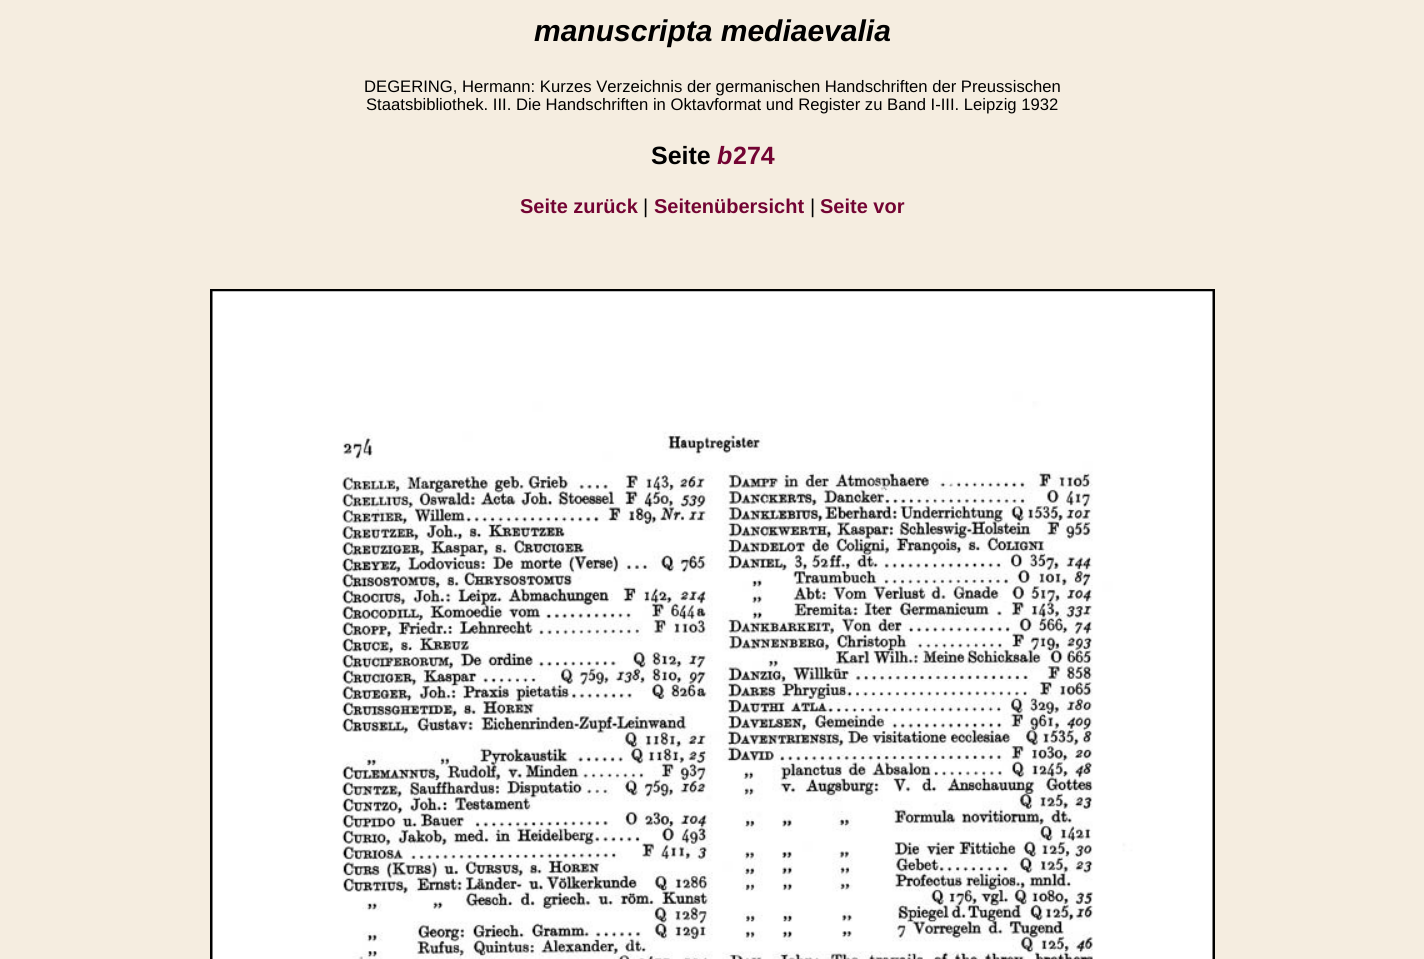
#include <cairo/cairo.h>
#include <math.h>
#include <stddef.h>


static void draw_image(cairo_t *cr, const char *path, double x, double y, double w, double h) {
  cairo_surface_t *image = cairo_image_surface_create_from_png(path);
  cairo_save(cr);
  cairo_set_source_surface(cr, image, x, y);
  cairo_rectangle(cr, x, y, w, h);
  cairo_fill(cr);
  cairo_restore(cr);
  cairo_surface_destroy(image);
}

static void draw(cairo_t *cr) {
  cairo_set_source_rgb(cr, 245 / 255.0, 237 / 255.0, 224 / 255.0);
  cairo_paint(cr);
  cairo_rectangle(cr, 211.5, 290.5, 1002, 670);
  cairo_set_source_rgb(cr, 0, 0, 0);
  cairo_set_line_width(cr, 3);
  cairo_stroke(cr);
  draw_image(cr, "images/1.png", 212, 291, 1001, 668);
  cairo_select_font_face(cr, "Liberation Sans", CAIRO_FONT_SLANT_ITALIC, CAIRO_FONT_WEIGHT_BOLD);
  cairo_set_font_size(cr, 30);
  cairo_move_to(cr, 534, 41);
  cairo_show_text(cr, "manuscripta mediaevalia");
  cairo_select_font_face(cr, "Liberation Sans", CAIRO_FONT_SLANT_NORMAL, CAIRO_FONT_WEIGHT_NORMAL);
  cairo_set_font_size(cr, 16.65);
  cairo_move_to(cr, 364, 92);
  cairo_show_text(cr, "DEGERING, Hermann: Kurzes Verzeichnis der germanischen Handschriften der Preussischen");
  cairo_move_to(cr, 366, 110);
  cairo_show_text(cr, "Staatsbibliothek. III. Die Handschriften in Oktavformat und Register zu Band I-III. Leipzig 1932");
  cairo_select_font_face(cr, "Liberation Sans", CAIRO_FONT_SLANT_NORMAL, CAIRO_FONT_WEIGHT_BOLD);
  cairo_set_font_size(cr, 25);
  cairo_move_to(cr, 651, 164);
  cairo_show_text(cr, "Seite");
  cairo_select_font_face(cr, "Liberation Sans", CAIRO_FONT_SLANT_ITALIC, CAIRO_FONT_WEIGHT_BOLD);
  cairo_set_source_rgb(cr, 115 / 255.0, 4 / 255.0, 51 / 255.0);
  cairo_move_to(cr, 717, 164);
  cairo_show_text(cr, "b");
  cairo_select_font_face(cr, "Liberation Sans", CAIRO_FONT_SLANT_NORMAL, CAIRO_FONT_WEIGHT_BOLD);
  cairo_move_to(cr, 733, 164);
  cairo_show_text(cr, "274");
  cairo_set_font_size(cr, 20);
  cairo_move_to(cr, 520, 213);
  cairo_show_text(cr, "Seite zurück");
  cairo_select_font_face(cr, "Liberation Sans", CAIRO_FONT_SLANT_NORMAL, CAIRO_FONT_WEIGHT_NORMAL);
  cairo_set_source_rgb(cr, 0, 0, 0);
  cairo_move_to(cr, 643, 213);
  cairo_show_text(cr, "|");
  cairo_select_font_face(cr, "Liberation Sans", CAIRO_FONT_SLANT_NORMAL, CAIRO_FONT_WEIGHT_BOLD);
  cairo_set_source_rgb(cr, 115 / 255.0, 4 / 255.0, 51 / 255.0);
  cairo_move_to(cr, 654, 213);
  cairo_show_text(cr, "Seitenübersicht");
  cairo_select_font_face(cr, "Liberation Sans", CAIRO_FONT_SLANT_NORMAL, CAIRO_FONT_WEIGHT_NORMAL);
  cairo_set_source_rgb(cr, 0, 0, 0);
  cairo_move_to(cr, 810, 213);
  cairo_show_text(cr, "|");
  cairo_select_font_face(cr, "Liberation Sans", CAIRO_FONT_SLANT_NORMAL, CAIRO_FONT_WEIGHT_BOLD);
  cairo_set_source_rgb(cr, 115 / 255.0, 4 / 255.0, 51 / 255.0);
  cairo_move_to(cr, 820, 213);
  cairo_show_text(cr, "Seite vor");
}

int main(void) {
  cairo_surface_t *surface = cairo_image_surface_create(CAIRO_FORMAT_RGB24, 1424, 959);
  cairo_t *cr = cairo_create(surface);
  cairo_font_options_t *options = cairo_font_options_create();
  cairo_font_options_set_hint_metrics(options, CAIRO_HINT_METRICS_OFF);
  cairo_font_options_set_hint_style(options, CAIRO_HINT_STYLE_NONE);
  cairo_set_font_options(cr, options);
  cairo_set_miter_limit(cr, 4);
  draw(cr);
  cairo_surface_write_to_png(surface, "out.png");
  cairo_font_options_destroy(options);
  cairo_destroy(cr);
  cairo_surface_destroy(surface);
  return 0;
}
